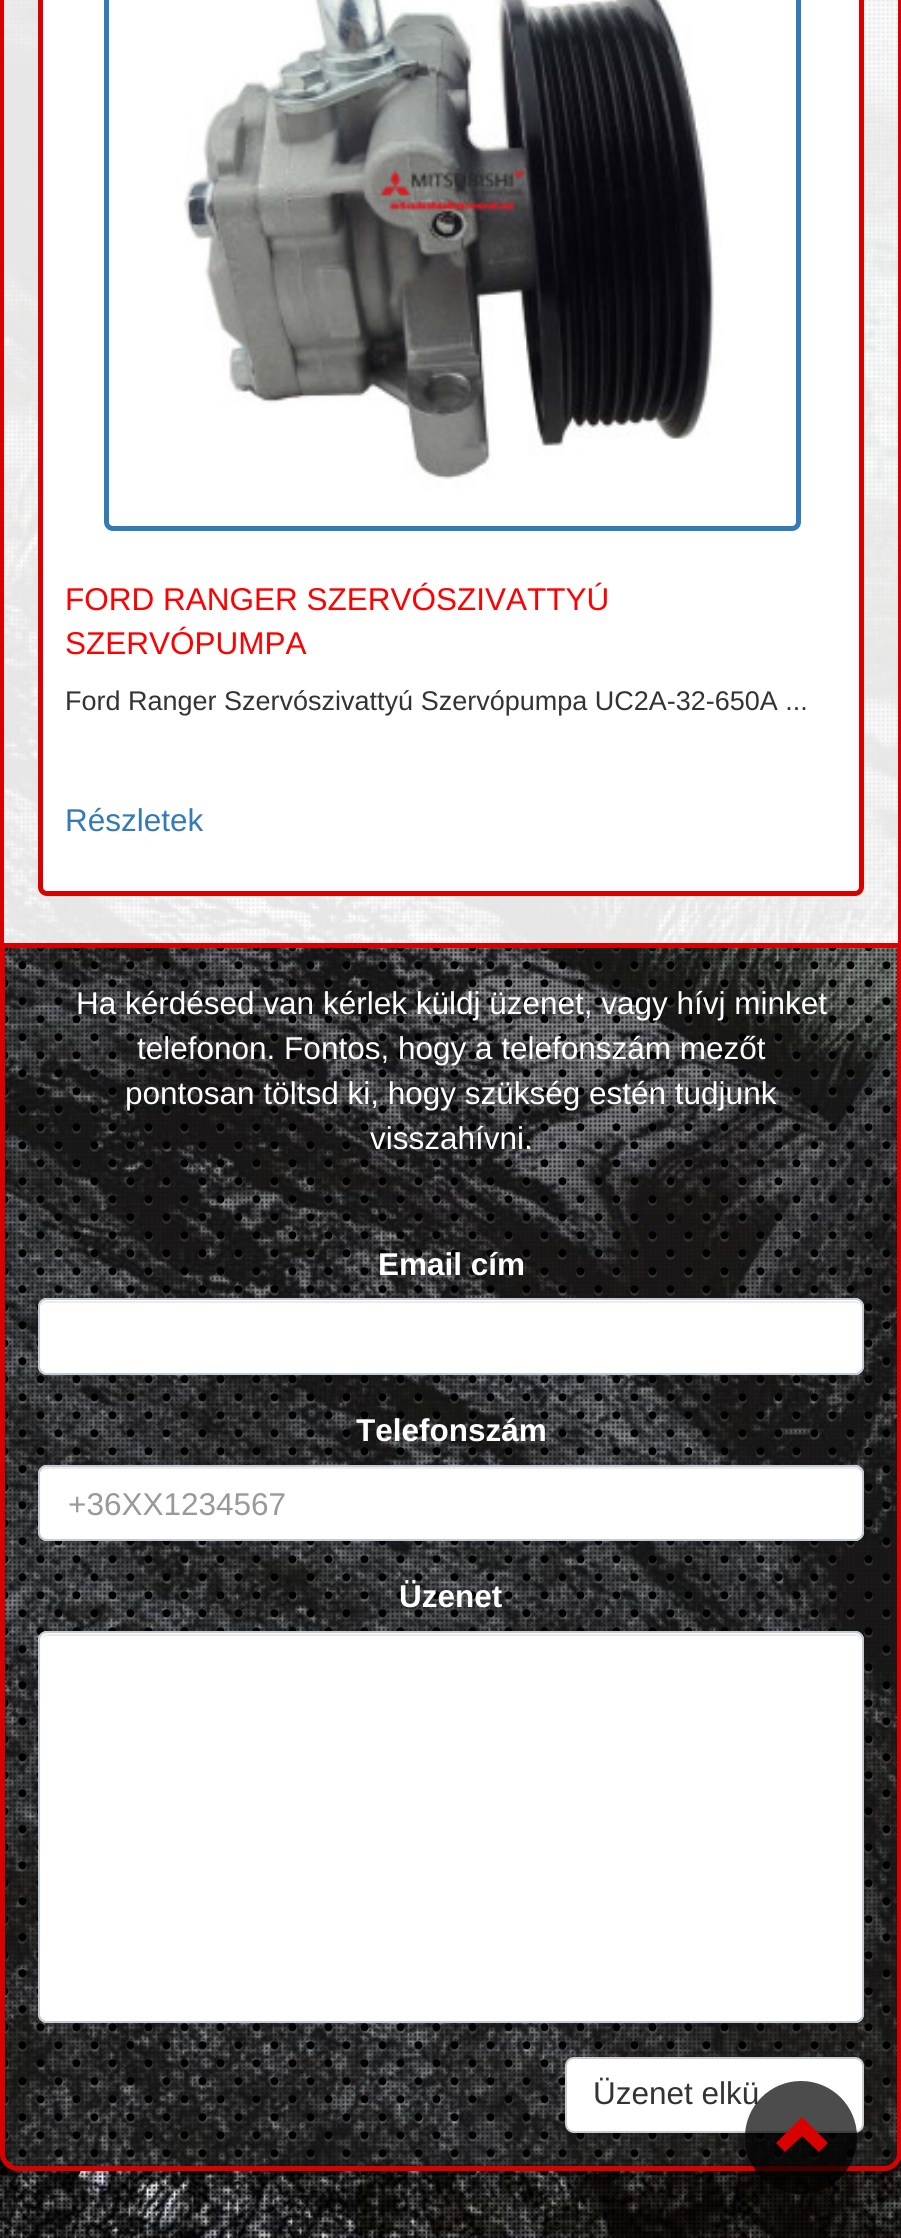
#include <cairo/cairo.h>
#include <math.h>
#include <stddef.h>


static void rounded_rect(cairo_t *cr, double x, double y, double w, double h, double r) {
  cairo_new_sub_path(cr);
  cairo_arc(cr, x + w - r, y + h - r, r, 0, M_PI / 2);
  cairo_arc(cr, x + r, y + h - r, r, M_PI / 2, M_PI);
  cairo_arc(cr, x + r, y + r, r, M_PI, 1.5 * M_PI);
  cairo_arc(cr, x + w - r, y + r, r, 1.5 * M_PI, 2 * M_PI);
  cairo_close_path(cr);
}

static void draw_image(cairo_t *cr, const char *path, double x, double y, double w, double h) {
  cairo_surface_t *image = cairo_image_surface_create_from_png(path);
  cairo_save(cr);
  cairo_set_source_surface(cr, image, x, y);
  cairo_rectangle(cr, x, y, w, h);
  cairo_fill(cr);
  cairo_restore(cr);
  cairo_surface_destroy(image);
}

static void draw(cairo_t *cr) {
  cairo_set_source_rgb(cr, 1, 1, 1);
  cairo_paint(cr);
  draw_image(cr, "images/1.png", 0, 0, 901, 2238);
  cairo_set_source_rgba(cr, 1, 1, 1, 0.9);
  cairo_rectangle(cr, 4, 0, 894, 943);
  cairo_fill(cr);
  cairo_set_source_rgb(cr, 217 / 255.0, 0, 0);
  cairo_set_fill_rule(cr, CAIRO_FILL_RULE_EVEN_ODD);
  cairo_new_path(cr);
  cairo_move_to(cr, 18, -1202);
  cairo_line_to(cr, 884, -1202);
  cairo_curve_to(cr, 894, -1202, 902, -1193, 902, -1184);
  cairo_line_to(cr, 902, 943);
  cairo_line_to(cr, 0, 943);
  cairo_line_to(cr, 0, -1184);
  cairo_curve_to(cr, 0, -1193, 8, -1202, 18, -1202);
  cairo_close_path(cr);
  cairo_move_to(cr, 18, -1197);
  cairo_line_to(cr, 884, -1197);
  cairo_curve_to(cr, 892, -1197, 898, -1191, 898, -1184);
  cairo_line_to(cr, 898, 943);
  cairo_line_to(cr, 4, 943);
  cairo_line_to(cr, 4, -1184);
  cairo_curve_to(cr, 4, -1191, 11, -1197, 18, -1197);
  cairo_close_path(cr);
  cairo_fill(cr);
  cairo_set_source_rgb(cr, 1, 1, 1);
  rounded_rect(cr, 40.5, -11.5, 821, 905, 6.5);
  cairo_fill_preserve(cr);
  cairo_set_source_rgb(cr, 217 / 255.0, 0, 0);
  cairo_set_line_width(cr, 5);
  cairo_stroke(cr);
  rounded_rect(cr, 106.5, -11.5, 692, 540, 6.5);
  cairo_set_source_rgb(cr, 51 / 255.0, 122 / 255.0, 183 / 255.0);
  cairo_stroke(cr);
  draw_image(cr, "images/2.png", 183, 0, 539, 489);
  cairo_set_source_rgba(cr, 40 / 255.0, 40 / 255.0, 40 / 255.0, 0.5);
  cairo_new_path(cr);
  cairo_move_to(cr, 0, 943);
  cairo_line_to(cr, 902, 943);
  cairo_line_to(cr, 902, 2153);
  cairo_curve_to(cr, 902, 2163, 894, 2171, 884, 2171);
  cairo_line_to(cr, 18, 2171);
  cairo_curve_to(cr, 8, 2171, 0, 2163, 0, 2153);
  cairo_close_path(cr);
  cairo_fill(cr);
  cairo_new_path(cr);
  cairo_move_to(cr, 4.5, 949.5);
  cairo_line_to(cr, 4.5, 2138);
  cairo_set_source_rgba(cr, 1, 1, 1, 0.1);
  cairo_set_line_width(cr, 8.9);
  cairo_set_line_cap(cr, CAIRO_LINE_CAP_ROUND);
  cairo_set_dash(cr, (double[]){0, 36}, 2, 0);
  cairo_stroke(cr);
  cairo_new_path(cr);
  cairo_move_to(cr, 40.5, 949.5);
  cairo_line_to(cr, 40.5, 2138);
  cairo_stroke(cr);
  cairo_new_path(cr);
  cairo_move_to(cr, 76.5, 949.5);
  cairo_line_to(cr, 76.5, 2138);
  cairo_stroke(cr);
  cairo_new_path(cr);
  cairo_move_to(cr, 112.5, 949.5);
  cairo_line_to(cr, 112.5, 2138);
  cairo_stroke(cr);
  cairo_new_path(cr);
  cairo_move_to(cr, 148.5, 949.5);
  cairo_line_to(cr, 148.5, 2138);
  cairo_stroke(cr);
  cairo_new_path(cr);
  cairo_move_to(cr, 184.5, 949.5);
  cairo_line_to(cr, 184.5, 2138);
  cairo_stroke(cr);
  cairo_new_path(cr);
  cairo_move_to(cr, 220.5, 949.5);
  cairo_line_to(cr, 220.5, 2138);
  cairo_stroke(cr);
  cairo_new_path(cr);
  cairo_move_to(cr, 256.5, 949.5);
  cairo_line_to(cr, 256.5, 2138);
  cairo_stroke(cr);
  cairo_new_path(cr);
  cairo_move_to(cr, 292.5, 949.5);
  cairo_line_to(cr, 292.5, 2138);
  cairo_stroke(cr);
  cairo_new_path(cr);
  cairo_move_to(cr, 328.5, 949.5);
  cairo_line_to(cr, 328.5, 2138);
  cairo_stroke(cr);
  cairo_new_path(cr);
  cairo_move_to(cr, 364.5, 949.5);
  cairo_line_to(cr, 364.5, 2138);
  cairo_stroke(cr);
  cairo_new_path(cr);
  cairo_move_to(cr, 400.5, 949.5);
  cairo_line_to(cr, 400.5, 2138);
  cairo_stroke(cr);
  cairo_new_path(cr);
  cairo_move_to(cr, 436.5, 949.5);
  cairo_line_to(cr, 436.5, 2138);
  cairo_stroke(cr);
  cairo_new_path(cr);
  cairo_move_to(cr, 472.5, 949.5);
  cairo_line_to(cr, 472.5, 2138);
  cairo_stroke(cr);
  cairo_new_path(cr);
  cairo_move_to(cr, 508.5, 949.5);
  cairo_line_to(cr, 508.5, 2138);
  cairo_stroke(cr);
  cairo_new_path(cr);
  cairo_move_to(cr, 544.5, 949.5);
  cairo_line_to(cr, 544.5, 2138);
  cairo_stroke(cr);
  cairo_new_path(cr);
  cairo_move_to(cr, 580.5, 949.5);
  cairo_line_to(cr, 580.5, 2138);
  cairo_stroke(cr);
  cairo_new_path(cr);
  cairo_move_to(cr, 616.5, 949.5);
  cairo_line_to(cr, 616.5, 2138);
  cairo_stroke(cr);
  cairo_new_path(cr);
  cairo_move_to(cr, 652.5, 949.5);
  cairo_line_to(cr, 652.5, 2138);
  cairo_stroke(cr);
  cairo_new_path(cr);
  cairo_move_to(cr, 688.5, 949.5);
  cairo_line_to(cr, 688.5, 2138);
  cairo_stroke(cr);
  cairo_new_path(cr);
  cairo_move_to(cr, 724.5, 949.5);
  cairo_line_to(cr, 724.5, 2138);
  cairo_stroke(cr);
  cairo_new_path(cr);
  cairo_move_to(cr, 760.5, 949.5);
  cairo_line_to(cr, 760.5, 2138);
  cairo_stroke(cr);
  cairo_new_path(cr);
  cairo_move_to(cr, 796.5, 949.5);
  cairo_line_to(cr, 796.5, 2138);
  cairo_stroke(cr);
  cairo_new_path(cr);
  cairo_move_to(cr, 832.5, 949.5);
  cairo_line_to(cr, 832.5, 2138);
  cairo_stroke(cr);
  cairo_new_path(cr);
  cairo_move_to(cr, 868.5, 949.5);
  cairo_line_to(cr, 868.5, 2138);
  cairo_stroke(cr);
  cairo_new_path(cr);
  cairo_move_to(cr, 22.5, 967.5);
  cairo_line_to(cr, 22.5, 2156);
  cairo_stroke(cr);
  cairo_new_path(cr);
  cairo_move_to(cr, 58.5, 967.5);
  cairo_line_to(cr, 58.5, 2156);
  cairo_stroke(cr);
  cairo_new_path(cr);
  cairo_move_to(cr, 94.5, 967.5);
  cairo_line_to(cr, 94.5, 2156);
  cairo_stroke(cr);
  cairo_new_path(cr);
  cairo_move_to(cr, 130.5, 967.5);
  cairo_line_to(cr, 130.5, 2156);
  cairo_stroke(cr);
  cairo_new_path(cr);
  cairo_move_to(cr, 166.5, 967.5);
  cairo_line_to(cr, 166.5, 2156);
  cairo_stroke(cr);
  cairo_new_path(cr);
  cairo_move_to(cr, 202.5, 967.5);
  cairo_line_to(cr, 202.5, 2156);
  cairo_stroke(cr);
  cairo_new_path(cr);
  cairo_move_to(cr, 238.5, 967.5);
  cairo_line_to(cr, 238.5, 2156);
  cairo_stroke(cr);
  cairo_new_path(cr);
  cairo_move_to(cr, 274.5, 967.5);
  cairo_line_to(cr, 274.5, 2156);
  cairo_stroke(cr);
  cairo_new_path(cr);
  cairo_move_to(cr, 310.5, 967.5);
  cairo_line_to(cr, 310.5, 2156);
  cairo_stroke(cr);
  cairo_new_path(cr);
  cairo_move_to(cr, 346.5, 967.5);
  cairo_line_to(cr, 346.5, 2156);
  cairo_stroke(cr);
  cairo_new_path(cr);
  cairo_move_to(cr, 382.5, 967.5);
  cairo_line_to(cr, 382.5, 2156);
  cairo_stroke(cr);
  cairo_new_path(cr);
  cairo_move_to(cr, 418.5, 967.5);
  cairo_line_to(cr, 418.5, 2156);
  cairo_stroke(cr);
  cairo_new_path(cr);
  cairo_move_to(cr, 454.5, 967.5);
  cairo_line_to(cr, 454.5, 2156);
  cairo_stroke(cr);
  cairo_new_path(cr);
  cairo_move_to(cr, 490.5, 967.5);
  cairo_line_to(cr, 490.5, 2156);
  cairo_stroke(cr);
  cairo_new_path(cr);
  cairo_move_to(cr, 526.5, 967.5);
  cairo_line_to(cr, 526.5, 2156);
  cairo_stroke(cr);
  cairo_new_path(cr);
  cairo_move_to(cr, 562.5, 967.5);
  cairo_line_to(cr, 562.5, 2156);
  cairo_stroke(cr);
  cairo_new_path(cr);
  cairo_move_to(cr, 598.5, 967.5);
  cairo_line_to(cr, 598.5, 2156);
  cairo_stroke(cr);
  cairo_new_path(cr);
  cairo_move_to(cr, 634.5, 967.5);
  cairo_line_to(cr, 634.5, 2156);
  cairo_stroke(cr);
  cairo_new_path(cr);
  cairo_move_to(cr, 670.5, 967.5);
  cairo_line_to(cr, 670.5, 2156);
  cairo_stroke(cr);
  cairo_new_path(cr);
  cairo_move_to(cr, 706.5, 967.5);
  cairo_line_to(cr, 706.5, 2156);
  cairo_stroke(cr);
  cairo_new_path(cr);
  cairo_move_to(cr, 742.5, 967.5);
  cairo_line_to(cr, 742.5, 2156);
  cairo_stroke(cr);
  cairo_new_path(cr);
  cairo_move_to(cr, 778.5, 967.5);
  cairo_line_to(cr, 778.5, 2156);
  cairo_stroke(cr);
  cairo_new_path(cr);
  cairo_move_to(cr, 814.5, 967.5);
  cairo_line_to(cr, 814.5, 2156);
  cairo_stroke(cr);
  cairo_new_path(cr);
  cairo_move_to(cr, 850.5, 967.5);
  cairo_line_to(cr, 850.5, 2156);
  cairo_stroke(cr);
  cairo_new_path(cr);
  cairo_move_to(cr, 886.5, 967.5);
  cairo_line_to(cr, 886.5, 2156);
  cairo_stroke(cr);
  cairo_new_path(cr);
  cairo_move_to(cr, 4.5, 947.2);
  cairo_line_to(cr, 4.5, 2171.7);
  cairo_set_source_rgb(cr, 0, 0, 0);
  cairo_set_line_width(cr, 7.9);
  cairo_stroke(cr);
  cairo_new_path(cr);
  cairo_move_to(cr, 40.5, 947.2);
  cairo_line_to(cr, 40.5, 2171.7);
  cairo_stroke(cr);
  cairo_new_path(cr);
  cairo_move_to(cr, 76.5, 947.2);
  cairo_line_to(cr, 76.5, 2171.7);
  cairo_stroke(cr);
  cairo_new_path(cr);
  cairo_move_to(cr, 112.5, 947.2);
  cairo_line_to(cr, 112.5, 2171.7);
  cairo_stroke(cr);
  cairo_new_path(cr);
  cairo_move_to(cr, 148.5, 947.2);
  cairo_line_to(cr, 148.5, 2171.7);
  cairo_stroke(cr);
  cairo_new_path(cr);
  cairo_move_to(cr, 184.5, 947.2);
  cairo_line_to(cr, 184.5, 2171.7);
  cairo_stroke(cr);
  cairo_new_path(cr);
  cairo_move_to(cr, 220.5, 947.2);
  cairo_line_to(cr, 220.5, 2171.7);
  cairo_stroke(cr);
  cairo_new_path(cr);
  cairo_move_to(cr, 256.5, 947.2);
  cairo_line_to(cr, 256.5, 2171.7);
  cairo_stroke(cr);
  cairo_new_path(cr);
  cairo_move_to(cr, 292.5, 947.2);
  cairo_line_to(cr, 292.5, 2171.7);
  cairo_stroke(cr);
  cairo_new_path(cr);
  cairo_move_to(cr, 328.5, 947.2);
  cairo_line_to(cr, 328.5, 2171.7);
  cairo_stroke(cr);
  cairo_new_path(cr);
  cairo_move_to(cr, 364.5, 947.2);
  cairo_line_to(cr, 364.5, 2171.7);
  cairo_stroke(cr);
  cairo_new_path(cr);
  cairo_move_to(cr, 400.5, 947.2);
  cairo_line_to(cr, 400.5, 2171.7);
  cairo_stroke(cr);
  cairo_new_path(cr);
  cairo_move_to(cr, 436.5, 947.2);
  cairo_line_to(cr, 436.5, 2171.7);
  cairo_stroke(cr);
  cairo_new_path(cr);
  cairo_move_to(cr, 472.5, 947.2);
  cairo_line_to(cr, 472.5, 2171.7);
  cairo_stroke(cr);
  cairo_new_path(cr);
  cairo_move_to(cr, 508.5, 947.2);
  cairo_line_to(cr, 508.5, 2171.7);
  cairo_stroke(cr);
  cairo_new_path(cr);
  cairo_move_to(cr, 544.5, 947.2);
  cairo_line_to(cr, 544.5, 2171.7);
  cairo_stroke(cr);
  cairo_new_path(cr);
  cairo_move_to(cr, 580.5, 947.2);
  cairo_line_to(cr, 580.5, 2171.7);
  cairo_stroke(cr);
  cairo_new_path(cr);
  cairo_move_to(cr, 616.5, 947.2);
  cairo_line_to(cr, 616.5, 2171.7);
  cairo_stroke(cr);
  cairo_new_path(cr);
  cairo_move_to(cr, 652.5, 947.2);
  cairo_line_to(cr, 652.5, 2171.7);
  cairo_stroke(cr);
  cairo_new_path(cr);
  cairo_move_to(cr, 688.5, 947.2);
  cairo_line_to(cr, 688.5, 2171.7);
  cairo_stroke(cr);
  cairo_new_path(cr);
  cairo_move_to(cr, 724.5, 947.2);
  cairo_line_to(cr, 724.5, 2171.7);
  cairo_stroke(cr);
  cairo_new_path(cr);
  cairo_move_to(cr, 760.5, 947.2);
  cairo_line_to(cr, 760.5, 2171.7);
  cairo_stroke(cr);
  cairo_new_path(cr);
  cairo_move_to(cr, 796.5, 947.2);
  cairo_line_to(cr, 796.5, 2171.7);
  cairo_stroke(cr);
  cairo_new_path(cr);
  cairo_move_to(cr, 832.5, 947.2);
  cairo_line_to(cr, 832.5, 2171.7);
  cairo_stroke(cr);
  cairo_new_path(cr);
  cairo_move_to(cr, 868.5, 947.2);
  cairo_line_to(cr, 868.5, 2171.7);
  cairo_stroke(cr);
  cairo_new_path(cr);
  cairo_move_to(cr, 22.5, 965.2);
  cairo_line_to(cr, 22.5, 2153.7);
  cairo_stroke(cr);
  cairo_new_path(cr);
  cairo_move_to(cr, 58.5, 965.2);
  cairo_line_to(cr, 58.5, 2153.7);
  cairo_stroke(cr);
  cairo_new_path(cr);
  cairo_move_to(cr, 94.5, 965.2);
  cairo_line_to(cr, 94.5, 2153.7);
  cairo_stroke(cr);
  cairo_new_path(cr);
  cairo_move_to(cr, 130.5, 965.2);
  cairo_line_to(cr, 130.5, 2153.7);
  cairo_stroke(cr);
  cairo_new_path(cr);
  cairo_move_to(cr, 166.5, 965.2);
  cairo_line_to(cr, 166.5, 2153.7);
  cairo_stroke(cr);
  cairo_new_path(cr);
  cairo_move_to(cr, 202.5, 965.2);
  cairo_line_to(cr, 202.5, 2153.7);
  cairo_stroke(cr);
  cairo_new_path(cr);
  cairo_move_to(cr, 238.5, 965.2);
  cairo_line_to(cr, 238.5, 2153.7);
  cairo_stroke(cr);
  cairo_new_path(cr);
  cairo_move_to(cr, 274.5, 965.2);
  cairo_line_to(cr, 274.5, 2153.7);
  cairo_stroke(cr);
  cairo_new_path(cr);
  cairo_move_to(cr, 310.5, 965.2);
  cairo_line_to(cr, 310.5, 2153.7);
  cairo_stroke(cr);
  cairo_new_path(cr);
  cairo_move_to(cr, 346.5, 965.2);
  cairo_line_to(cr, 346.5, 2153.7);
  cairo_stroke(cr);
  cairo_new_path(cr);
  cairo_move_to(cr, 382.5, 965.2);
  cairo_line_to(cr, 382.5, 2153.7);
  cairo_stroke(cr);
  cairo_new_path(cr);
  cairo_move_to(cr, 418.5, 965.2);
  cairo_line_to(cr, 418.5, 2153.7);
  cairo_stroke(cr);
  cairo_new_path(cr);
  cairo_move_to(cr, 454.5, 965.2);
  cairo_line_to(cr, 454.5, 2153.7);
  cairo_stroke(cr);
  cairo_new_path(cr);
  cairo_move_to(cr, 490.5, 965.2);
  cairo_line_to(cr, 490.5, 2153.7);
  cairo_stroke(cr);
  cairo_new_path(cr);
  cairo_move_to(cr, 526.5, 965.2);
  cairo_line_to(cr, 526.5, 2153.7);
  cairo_stroke(cr);
  cairo_new_path(cr);
  cairo_move_to(cr, 562.5, 965.2);
  cairo_line_to(cr, 562.5, 2153.7);
  cairo_stroke(cr);
  cairo_new_path(cr);
  cairo_move_to(cr, 598.5, 965.2);
  cairo_line_to(cr, 598.5, 2153.7);
  cairo_stroke(cr);
  cairo_new_path(cr);
  cairo_move_to(cr, 634.5, 965.2);
  cairo_line_to(cr, 634.5, 2153.7);
  cairo_stroke(cr);
  cairo_new_path(cr);
  cairo_move_to(cr, 670.5, 965.2);
  cairo_line_to(cr, 670.5, 2153.7);
  cairo_stroke(cr);
  cairo_new_path(cr);
  cairo_move_to(cr, 706.5, 965.2);
  cairo_line_to(cr, 706.5, 2153.7);
  cairo_stroke(cr);
  cairo_new_path(cr);
  cairo_move_to(cr, 742.5, 965.2);
  cairo_line_to(cr, 742.5, 2153.7);
  cairo_stroke(cr);
  cairo_new_path(cr);
  cairo_move_to(cr, 778.5, 965.2);
  cairo_line_to(cr, 778.5, 2153.7);
  cairo_stroke(cr);
  cairo_new_path(cr);
  cairo_move_to(cr, 814.5, 965.2);
  cairo_line_to(cr, 814.5, 2153.7);
  cairo_stroke(cr);
  cairo_new_path(cr);
  cairo_move_to(cr, 850.5, 965.2);
  cairo_line_to(cr, 850.5, 2153.7);
  cairo_stroke(cr);
  cairo_new_path(cr);
  cairo_move_to(cr, 886.5, 965.2);
  cairo_line_to(cr, 886.5, 2153.7);
  cairo_stroke(cr);
  cairo_new_path(cr);
  cairo_move_to(cr, 2.5, 945.5);
  cairo_line_to(cr, 899.5, 945.5);
  cairo_line_to(cr, 899.5, 2153);
  cairo_curve_to(cr, 899.5, 2161.5, 892.5, 2168.5, 884, 2168.5);
  cairo_line_to(cr, 18, 2168.5);
  cairo_curve_to(cr, 9.5, 2168.5, 2.5, 2161.5, 2.5, 2153);
  cairo_close_path(cr);
  cairo_set_source_rgb(cr, 217 / 255.0, 0, 0);
  cairo_set_line_width(cr, 5);
  cairo_set_line_cap(cr, CAIRO_LINE_CAP_BUTT);
  cairo_set_dash(cr, NULL, 0, 0);
  cairo_stroke(cr);
  cairo_set_source_rgb(cr, 1, 1, 1);
  rounded_rect(cr, 38, 1298, 826, 77, 9);
  cairo_fill(cr);
  cairo_set_source_rgb(cr, 236 / 255.0, 236 / 255.0, 236 / 255.0);
  cairo_set_fill_rule(cr, CAIRO_FILL_RULE_WINDING);
  cairo_new_path(cr);
  cairo_move_to(cr, 47, 1303);
  cairo_line_to(cr, 855, 1303);
  cairo_curve_to(cr, 859, 1303, 862, 1306, 862, 1310);
  cairo_line_to(cr, 862, 1308);
  cairo_curve_to(cr, 862, 1304, 859, 1301, 855, 1301);
  cairo_line_to(cr, 48, 1301);
  cairo_curve_to(cr, 45, 1301, 42, 1303, 41, 1306);
  cairo_curve_to(cr, 43, 1304, 45, 1303, 47, 1303);
  cairo_close_path(cr);
  cairo_fill(cr);
  rounded_rect(cr, 39, 1299, 824, 75, 8);
  cairo_set_source_rgb(cr, 194 / 255.0, 202 / 255.0, 216 / 255.0);
  cairo_set_line_width(cr, 2);
  cairo_stroke(cr);
  cairo_set_source_rgb(cr, 1, 1, 1);
  rounded_rect(cr, 38, 1465, 826, 76, 9);
  cairo_fill(cr);
  cairo_set_source_rgb(cr, 236 / 255.0, 236 / 255.0, 236 / 255.0);
  cairo_new_path(cr);
  cairo_move_to(cr, 47, 1469);
  cairo_line_to(cr, 855, 1469);
  cairo_curve_to(cr, 859, 1469, 862, 1472, 862, 1476);
  cairo_line_to(cr, 862, 1474);
  cairo_curve_to(cr, 862, 1470, 859, 1467, 855, 1467);
  cairo_line_to(cr, 48, 1467);
  cairo_curve_to(cr, 45, 1467, 42, 1469, 41, 1472);
  cairo_curve_to(cr, 43, 1470, 45, 1469, 47, 1469);
  cairo_close_path(cr);
  cairo_fill(cr);
  rounded_rect(cr, 39, 1466, 824, 74, 8);
  cairo_set_source_rgb(cr, 194 / 255.0, 202 / 255.0, 216 / 255.0);
  cairo_stroke(cr);
  cairo_set_source_rgb(cr, 1, 1, 1);
  rounded_rect(cr, 38, 1631, 826, 392, 9);
  cairo_fill(cr);
  cairo_set_source_rgb(cr, 236 / 255.0, 236 / 255.0, 236 / 255.0);
  cairo_new_path(cr);
  cairo_move_to(cr, 47, 1636);
  cairo_line_to(cr, 855, 1636);
  cairo_curve_to(cr, 859, 1636, 862, 1639, 862, 1642);
  cairo_line_to(cr, 862, 1641);
  cairo_curve_to(cr, 862, 1637, 859, 1634, 855, 1634);
  cairo_line_to(cr, 48, 1634);
  cairo_curve_to(cr, 45, 1634, 42, 1636, 41, 1639);
  cairo_curve_to(cr, 43, 1637, 45, 1636, 47, 1636);
  cairo_close_path(cr);
  cairo_fill(cr);
  rounded_rect(cr, 39, 1632, 824, 390, 8);
  cairo_set_source_rgb(cr, 194 / 255.0, 202 / 255.0, 216 / 255.0);
  cairo_stroke(cr);
  cairo_set_source_rgb(cr, 1, 1, 1);
  rounded_rect(cr, 566, 2058, 297, 74, 8);
  cairo_fill_preserve(cr);
  cairo_set_source_rgb(cr, 204 / 255.0, 204 / 255.0, 204 / 255.0);
  cairo_stroke(cr);
  cairo_select_font_face(cr, "Liberation Sans", CAIRO_FONT_SLANT_NORMAL, CAIRO_FONT_WEIGHT_NORMAL);
  cairo_set_font_size(cr, 31.5);
  cairo_set_source_rgb(cr, 1, 0, 0);
  cairo_move_to(cr, 65, 610);
  cairo_show_text(cr, "FORD RANGER SZERVÓSZIVATTYÚ");
  cairo_move_to(cr, 65, 654);
  cairo_show_text(cr, "SZERVÓPUMPA");
  cairo_set_font_size(cr, 27);
  cairo_set_source_rgb(cr, 51 / 255.0, 51 / 255.0, 51 / 255.0);
  cairo_move_to(cr, 65, 710);
  cairo_show_text(cr, "Ford Ranger Szervószivattyú Szervópumpa UC2A-32-650A ...");
  cairo_set_font_size(cr, 31.5);
  cairo_set_source_rgb(cr, 51 / 255.0, 122 / 255.0, 183 / 255.0);
  cairo_move_to(cr, 65, 831);
  cairo_show_text(cr, "Részletek");
  cairo_set_source_rgb(cr, 1, 1, 1);
  cairo_move_to(cr, 76, 1014);
  cairo_show_text(cr, "Ha kérdésed van kérlek küldj üzenet, vagy hívj minket");
  cairo_move_to(cr, 137, 1059);
  cairo_show_text(cr, "telefonon. Fontos, hogy a telefonszám mezőt");
  cairo_move_to(cr, 125, 1104);
  cairo_show_text(cr, "pontosan töltsd ki, hogy szükség estén tudjunk");
  cairo_move_to(cr, 370, 1149);
  cairo_show_text(cr, "visszahívni.");
  cairo_select_font_face(cr, "Liberation Sans", CAIRO_FONT_SLANT_NORMAL, CAIRO_FONT_WEIGHT_BOLD);
  cairo_move_to(cr, 378, 1275);
  cairo_show_text(cr, "Email cím");
  cairo_move_to(cr, 356, 1441);
  cairo_show_text(cr, "Telefonszám");
  cairo_select_font_face(cr, "Liberation Sans", CAIRO_FONT_SLANT_NORMAL, CAIRO_FONT_WEIGHT_NORMAL);
  cairo_set_source_rgb(cr, 153 / 255.0, 153 / 255.0, 153 / 255.0);
  cairo_move_to(cr, 68, 1515);
  cairo_show_text(cr, "+36XX1234567");
  cairo_select_font_face(cr, "Liberation Sans", CAIRO_FONT_SLANT_NORMAL, CAIRO_FONT_WEIGHT_BOLD);
  cairo_set_source_rgb(cr, 1, 1, 1);
  cairo_move_to(cr, 399, 1607);
  cairo_show_text(cr, "Üzenet");
  cairo_select_font_face(cr, "Liberation Sans", CAIRO_FONT_SLANT_NORMAL, CAIRO_FONT_WEIGHT_NORMAL);
  cairo_set_source_rgb(cr, 51 / 255.0, 51 / 255.0, 51 / 255.0);
  cairo_move_to(cr, 593, 2104);
  cairo_show_text(cr, "Üzenet elkü");
  cairo_set_source_rgba(cr, 0, 0, 0, 0.7);
  rounded_rect(cr, 745, 2081, 112, 113, 56);
  cairo_fill(cr);
  cairo_set_source_rgb(cr, 217 / 255.0, 0, 0);
  cairo_new_path(cr);
  cairo_move_to(cr, 828, 2143);
  cairo_line_to(cr, 819, 2152);
  cairo_line_to(cr, 802, 2136);
  cairo_line_to(cr, 785, 2152);
  cairo_line_to(cr, 776, 2143);
  cairo_line_to(cr, 802, 2117);
  cairo_close_path(cr);
  cairo_fill(cr);
}

int main(void) {
  cairo_surface_t *surface = cairo_image_surface_create(CAIRO_FORMAT_RGB24, 901, 2238);
  cairo_t *cr = cairo_create(surface);
  cairo_font_options_t *options = cairo_font_options_create();
  cairo_font_options_set_hint_metrics(options, CAIRO_HINT_METRICS_OFF);
  cairo_font_options_set_hint_style(options, CAIRO_HINT_STYLE_NONE);
  cairo_set_font_options(cr, options);
  cairo_set_miter_limit(cr, 4);
  draw(cr);
  cairo_surface_write_to_png(surface, "out.png");
  cairo_font_options_destroy(options);
  cairo_destroy(cr);
  cairo_surface_destroy(surface);
  return 0;
}
